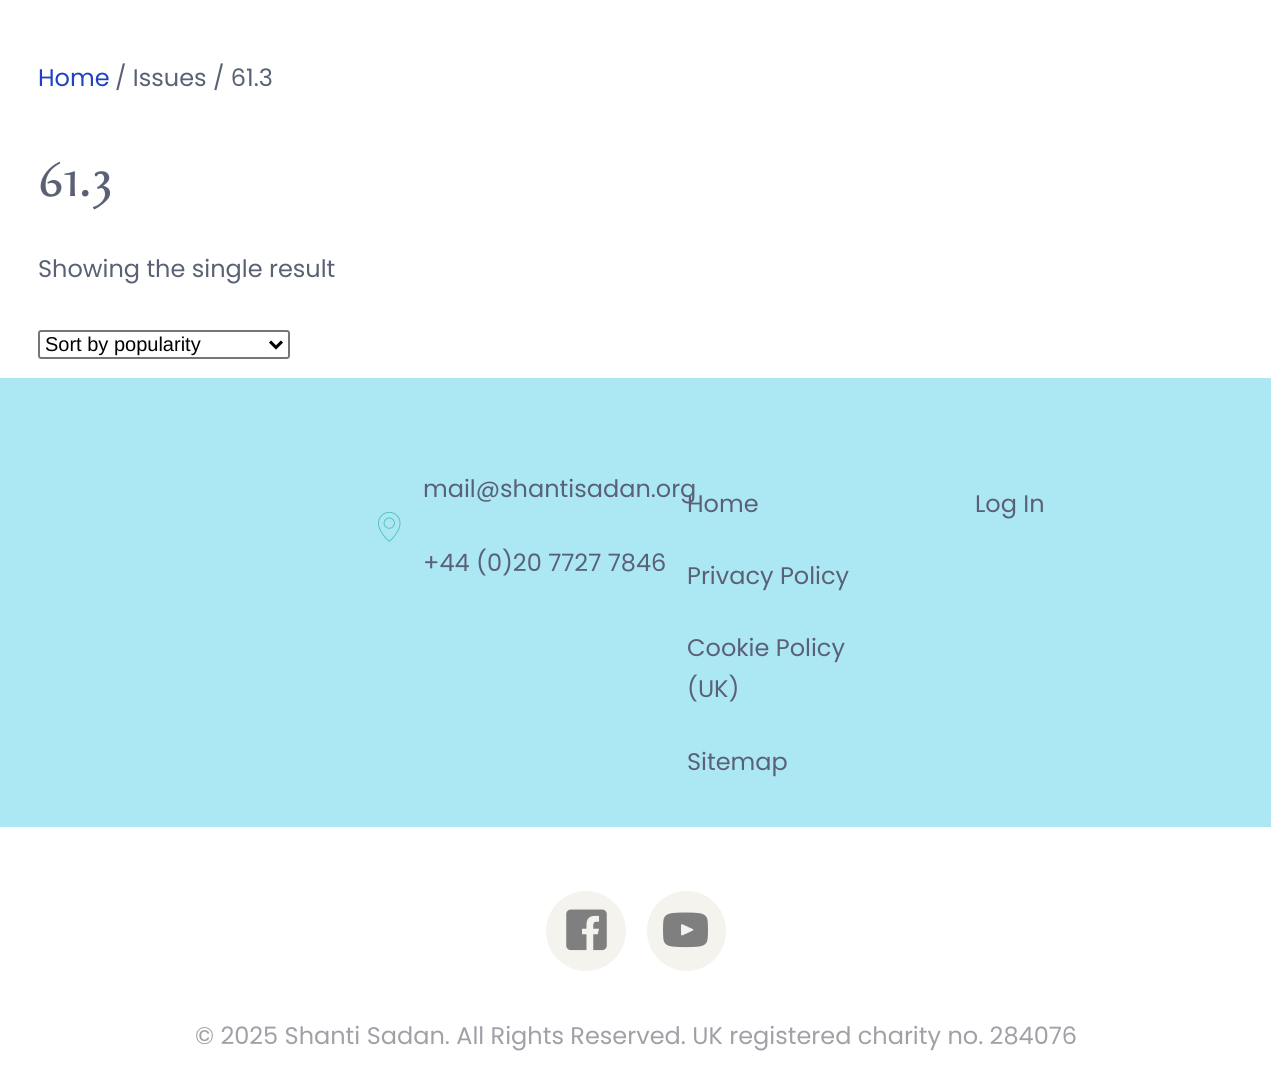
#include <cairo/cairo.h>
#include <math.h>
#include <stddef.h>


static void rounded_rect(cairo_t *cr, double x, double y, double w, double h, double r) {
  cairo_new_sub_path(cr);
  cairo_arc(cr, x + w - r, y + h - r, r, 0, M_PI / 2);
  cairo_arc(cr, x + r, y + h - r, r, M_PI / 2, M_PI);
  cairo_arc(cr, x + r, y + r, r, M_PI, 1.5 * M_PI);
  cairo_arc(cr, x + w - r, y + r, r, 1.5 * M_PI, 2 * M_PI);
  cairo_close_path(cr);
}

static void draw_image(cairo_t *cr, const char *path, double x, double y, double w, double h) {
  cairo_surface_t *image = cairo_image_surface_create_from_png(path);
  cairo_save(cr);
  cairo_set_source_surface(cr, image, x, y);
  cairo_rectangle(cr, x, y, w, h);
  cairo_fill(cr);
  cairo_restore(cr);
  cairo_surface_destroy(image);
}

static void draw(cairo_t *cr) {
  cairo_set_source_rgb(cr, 1, 1, 1);
  cairo_paint(cr);
  rounded_rect(cr, 39, 331, 250, 27, 2);
  cairo_set_source_rgb(cr, 118 / 255.0, 118 / 255.0, 118 / 255.0);
  cairo_stroke(cr);
  cairo_new_path(cr);
  cairo_move_to(cr, 270, 341.5);
  cairo_line_to(cr, 276, 347.5);
  cairo_line_to(cr, 282, 341.5);
  cairo_set_source_rgb(cr, 0, 0, 0);
  cairo_set_line_width(cr, 3);
  cairo_stroke(cr);
  cairo_set_source_rgb(cr, 172 / 255.0, 232 / 255.0, 244 / 255.0);
  cairo_rectangle(cr, 0, 378, 1271, 449);
  cairo_fill(cr);
  draw_image(cr, "images/1.png", 378, 511, 23, 31);
  cairo_set_source_rgb(cr, 245 / 255.0, 243 / 255.0, 238 / 255.0);
  cairo_arc(cr, 586, 931, 40, 0, 2 * M_PI);
  cairo_fill(cr);
  draw_image(cr, "images/2.png", 566, 909, 41, 42);
  rounded_rect(cr, 647, 891, 79, 80, 39.5);
  cairo_fill(cr);
  draw_image(cr, "images/3.png", 663, 912, 45, 36);
  cairo_select_font_face(cr, "Poppins", CAIRO_FONT_SLANT_NORMAL, CAIRO_FONT_WEIGHT_NORMAL);
  cairo_set_font_size(cr, 24);
  cairo_set_source_rgb(cr, 30 / 255.0, 67 / 255.0, 188 / 255.0);
  cairo_move_to(cr, 38, 86);
  cairo_show_text(cr, "Home");
  cairo_set_source_rgb(cr, 90 / 255.0, 97 / 255.0, 117 / 255.0);
  cairo_move_to(cr, 115, 86);
  cairo_show_text(cr, "/ Issues / 61.3");
  cairo_select_font_face(cr, "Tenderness", CAIRO_FONT_SLANT_NORMAL, CAIRO_FONT_WEIGHT_NORMAL);
  cairo_set_font_size(cr, 60);
  cairo_move_to(cr, 38, 196);
  cairo_show_text(cr, "61.3");
  cairo_select_font_face(cr, "Poppins", CAIRO_FONT_SLANT_NORMAL, CAIRO_FONT_WEIGHT_NORMAL);
  cairo_set_font_size(cr, 24);
  cairo_move_to(cr, 38, 277);
  cairo_show_text(cr, "Showing the single result");
  cairo_select_font_face(cr, "Liberation Sans", CAIRO_FONT_SLANT_NORMAL, CAIRO_FONT_WEIGHT_NORMAL);
  cairo_set_font_size(cr, 20);
  cairo_set_source_rgb(cr, 0, 0, 0);
  cairo_move_to(cr, 45, 351);
  cairo_show_text(cr, "Sort by popularity");
  cairo_select_font_face(cr, "Poppins", CAIRO_FONT_SLANT_NORMAL, CAIRO_FONT_WEIGHT_NORMAL);
  cairo_set_font_size(cr, 24);
  cairo_set_source_rgb(cr, 90 / 255.0, 97 / 255.0, 117 / 255.0);
  cairo_move_to(cr, 423, 497);
  cairo_show_text(cr, "mail@shantisadan.org");
  cairo_move_to(cr, 423, 571);
  cairo_show_text(cr, "+44 (0)20 7727 7846");
  cairo_move_to(cr, 687, 512);
  cairo_show_text(cr, "Home");
  cairo_move_to(cr, 687, 584);
  cairo_show_text(cr, "Privacy Policy");
  cairo_move_to(cr, 687, 656);
  cairo_show_text(cr, "Cookie Policy");
  cairo_move_to(cr, 687, 697);
  cairo_show_text(cr, "(UK)");
  cairo_move_to(cr, 687, 770);
  cairo_show_text(cr, "Sitemap");
  cairo_move_to(cr, 975, 512);
  cairo_show_text(cr, "Log In");
  cairo_set_source_rgb(cr, 159 / 255.0, 161 / 255.0, 166 / 255.0);
  cairo_move_to(cr, 195, 1044);
  cairo_show_text(cr, "© 2025 Shanti Sadan. All Rights Reserved. UK registered charity no. 284076");
}

int main(void) {
  cairo_surface_t *surface = cairo_image_surface_create(CAIRO_FORMAT_RGB24, 1271, 1089);
  cairo_t *cr = cairo_create(surface);
  cairo_font_options_t *options = cairo_font_options_create();
  cairo_font_options_set_hint_metrics(options, CAIRO_HINT_METRICS_OFF);
  cairo_font_options_set_hint_style(options, CAIRO_HINT_STYLE_NONE);
  cairo_set_font_options(cr, options);
  cairo_set_miter_limit(cr, 4);
  draw(cr);
  cairo_surface_write_to_png(surface, "out.png");
  cairo_font_options_destroy(options);
  cairo_destroy(cr);
  cairo_surface_destroy(surface);
  return 0;
}
